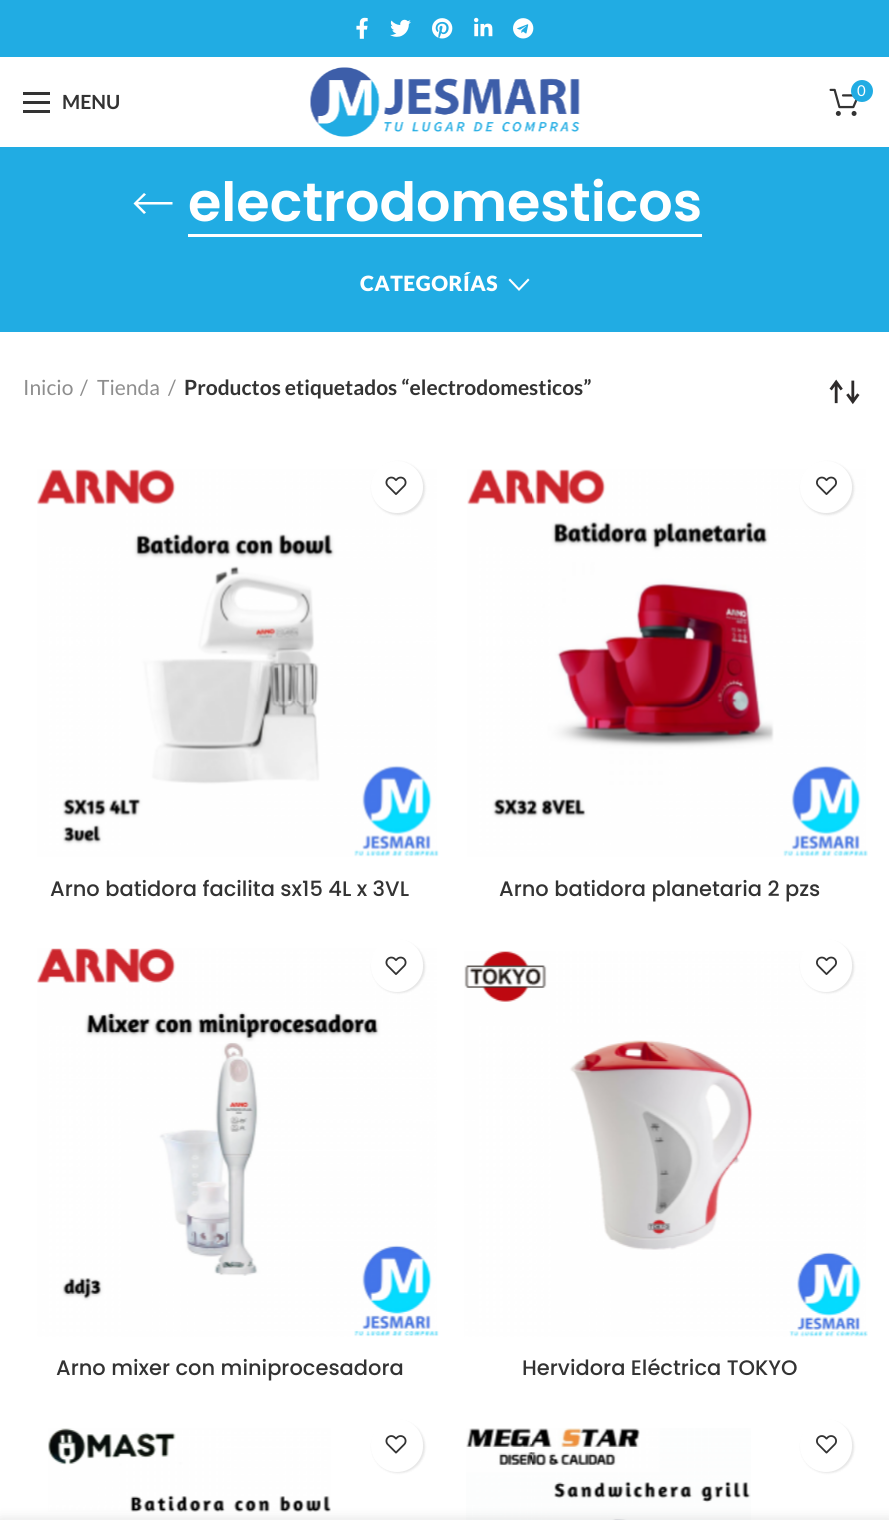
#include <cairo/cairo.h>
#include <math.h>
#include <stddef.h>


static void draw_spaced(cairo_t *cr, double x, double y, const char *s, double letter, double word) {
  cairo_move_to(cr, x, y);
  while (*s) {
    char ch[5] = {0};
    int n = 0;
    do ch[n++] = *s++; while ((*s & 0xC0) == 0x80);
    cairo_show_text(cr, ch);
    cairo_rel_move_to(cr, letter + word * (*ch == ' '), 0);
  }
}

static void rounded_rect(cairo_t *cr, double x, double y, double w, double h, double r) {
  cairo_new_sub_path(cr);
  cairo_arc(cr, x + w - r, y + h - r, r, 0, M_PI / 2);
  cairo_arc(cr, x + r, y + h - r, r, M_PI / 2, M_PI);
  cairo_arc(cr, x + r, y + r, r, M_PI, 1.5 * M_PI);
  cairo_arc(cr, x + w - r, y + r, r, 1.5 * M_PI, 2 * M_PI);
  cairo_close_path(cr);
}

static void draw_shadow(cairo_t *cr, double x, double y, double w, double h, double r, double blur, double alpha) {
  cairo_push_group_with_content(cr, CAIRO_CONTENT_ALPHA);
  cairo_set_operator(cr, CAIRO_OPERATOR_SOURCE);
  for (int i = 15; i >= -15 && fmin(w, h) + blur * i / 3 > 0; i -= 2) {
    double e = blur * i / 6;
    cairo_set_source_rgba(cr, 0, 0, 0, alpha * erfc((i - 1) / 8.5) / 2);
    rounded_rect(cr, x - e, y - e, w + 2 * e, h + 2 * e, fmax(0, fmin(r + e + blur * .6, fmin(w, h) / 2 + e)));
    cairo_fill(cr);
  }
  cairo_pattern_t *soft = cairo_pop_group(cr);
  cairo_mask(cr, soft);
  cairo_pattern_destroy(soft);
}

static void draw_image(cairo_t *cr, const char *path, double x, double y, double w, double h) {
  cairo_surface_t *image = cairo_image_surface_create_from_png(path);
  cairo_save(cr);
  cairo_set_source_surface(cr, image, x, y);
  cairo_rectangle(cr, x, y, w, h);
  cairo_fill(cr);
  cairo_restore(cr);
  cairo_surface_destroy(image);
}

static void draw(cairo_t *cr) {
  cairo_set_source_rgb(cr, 1, 1, 1);
  cairo_paint(cr);
  cairo_set_source_rgb(cr, 33 / 255.0, 172 / 255.0, 227 / 255.0);
  cairo_rectangle(cr, 0, 0, 889, 57);
  cairo_fill(cr);
  draw_image(cr, "images/1.png", 356, 17, 12, 22);
  draw_image(cr, "images/2.png", 390, 19, 21, 18);
  draw_image(cr, "images/3.png", 432, 18, 21, 21);
  draw_image(cr, "images/4.png", 474, 17, 19, 20);
  draw_image(cr, "images/5.png", 513, 18, 21, 21);
  draw_image(cr, "images/6.png", 310, 67, 270, 70);
  draw_image(cr, "images/7.png", 829, 88, 29, 28);
  cairo_arc(cr, 862, 91, 11, 0, 2 * M_PI);
  cairo_fill(cr);
  cairo_set_source_rgb(cr, 51 / 255.0, 51 / 255.0, 51 / 255.0);
  cairo_rectangle(cr, 23, 101, 27, 3);
  cairo_fill(cr);
  cairo_rectangle(cr, 23, 92, 27, 3);
  cairo_fill(cr);
  cairo_rectangle(cr, 23, 110, 27, 3);
  cairo_fill(cr);
  cairo_set_source_rgb(cr, 33 / 255.0, 172 / 255.0, 227 / 255.0);
  cairo_rectangle(cr, 0, 147, 889, 185);
  cairo_fill(cr);
  cairo_set_source_rgb(cr, 1, 1, 1);
  cairo_new_path(cr);
  cairo_move_to(cr, 172.5, 202);
  cairo_line_to(cr, 172.5, 204.5);
  cairo_line_to(cr, 138, 204.5);
  cairo_line_to(cr, 146, 212.5);
  cairo_line_to(cr, 144, 214);
  cairo_line_to(cr, 133.5, 203.5);
  cairo_line_to(cr, 144, 193);
  cairo_line_to(cr, 146, 194.5);
  cairo_line_to(cr, 138, 202);
  cairo_close_path(cr);
  cairo_fill(cr);
  cairo_rectangle(cr, 188, 234, 514, 3);
  cairo_fill(cr);
  cairo_new_path(cr);
  cairo_move_to(cr, 528, 278.5);
  cairo_line_to(cr, 529.5, 280);
  cairo_line_to(cr, 519, 291);
  cairo_line_to(cr, 508.5, 280);
  cairo_line_to(cr, 510, 278.5);
  cairo_line_to(cr, 519, 288);
  cairo_close_path(cr);
  cairo_fill(cr);
  draw_image(cr, "images/8.png", 829, 379, 31, 26);
  draw_image(cr, "images/10.png", 37, 469, 402, 388);
  cairo_set_source_rgb(cr, 0, 0, 0);
  draw_shadow(cr, 372, 462, 53, 53, 26.5, 1, 0.1);
  cairo_set_source_rgb(cr, 1, 1, 1);
  cairo_arc(cr, 397, 487, 26, 0, 2 * M_PI);
  cairo_fill(cr);
  draw_image(cr, "images/9.png", 385, 476, 22, 19);
  draw_image(cr, "images/12.png", 467, 469, 401, 388);
  cairo_set_source_rgb(cr, 0, 0, 0);
  draw_shadow(cr, 801, 462, 53, 53, 26.5, 1, 0.1);
  cairo_set_source_rgb(cr, 1, 1, 1);
  cairo_arc(cr, 826, 487, 26, 0, 2 * M_PI);
  cairo_fill(cr);
  draw_image(cr, "images/11.png", 816, 476, 21, 19);
  draw_image(cr, "images/13.png", 37, 948, 402, 389);
  cairo_set_source_rgb(cr, 0, 0, 0);
  draw_shadow(cr, 372, 941, 53, 52, 26, 1, 0.1);
  cairo_set_source_rgb(cr, 1, 1, 1);
  rounded_rect(cr, 371, 939, 52, 53, 26);
  cairo_fill(cr);
  draw_image(cr, "images/9.png", 385, 956, 22, 19);
  draw_image(cr, "images/14.png", 464, 951, 404, 386);
  cairo_set_source_rgb(cr, 0, 0, 0);
  draw_shadow(cr, 801, 941, 53, 52, 26, 1, 0.1);
  cairo_set_source_rgb(cr, 1, 1, 1);
  rounded_rect(cr, 800, 939, 52, 53, 26);
  cairo_fill(cr);
  draw_image(cr, "images/11.png", 816, 956, 21, 19);
  draw_image(cr, "images/15.png", 48, 1428, 283, 84);
  cairo_set_source_rgb(cr, 0, 0, 0);
  draw_shadow(cr, 372, 1421, 53, 52, 26, 1, 0.1);
  cairo_set_source_rgb(cr, 1, 1, 1);
  rounded_rect(cr, 371, 1419, 52, 53, 26);
  cairo_fill(cr);
  draw_image(cr, "images/16.png", 385, 1435, 22, 19);
  draw_image(cr, "images/17.png", 466, 1428, 285, 92);
  cairo_set_source_rgb(cr, 0, 0, 0);
  draw_shadow(cr, 801, 1421, 53, 52, 26, 1, 0.1);
  cairo_set_source_rgb(cr, 1, 1, 1);
  rounded_rect(cr, 800, 1419, 52, 53, 26);
  cairo_fill(cr);
  draw_image(cr, "images/18.png", 816, 1435, 21, 19);
  cairo_set_source_rgb(cr, 0, 0, 0);
  draw_shadow(cr, 0, 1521, 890, 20, 0, 7, 0.14);
  cairo_select_font_face(cr, "Lato", CAIRO_FONT_SLANT_NORMAL, CAIRO_FONT_WEIGHT_NORMAL);
  cairo_set_font_size(cr, 15);
  cairo_set_source_rgb(cr, 1, 1, 1);
  cairo_move_to(cr, 857, 96);
  cairo_show_text(cr, "0");
  cairo_select_font_face(cr, "Lato", CAIRO_FONT_SLANT_NORMAL, CAIRO_FONT_WEIGHT_BOLD);
  cairo_set_font_size(cr, 19.5);
  cairo_set_source_rgb(cr, 51 / 255.0, 51 / 255.0, 51 / 255.0);
  cairo_move_to(cr, 62, 109);
  cairo_show_text(cr, "MENU");
  cairo_select_font_face(cr, "Poppins SemiBold", CAIRO_FONT_SLANT_NORMAL, CAIRO_FONT_WEIGHT_NORMAL);
  cairo_set_font_size(cr, 54);
  cairo_set_source_rgb(cr, 1, 1, 1);
  cairo_move_to(cr, 188, 221);
  cairo_show_text(cr, "electrodomesticos");
  cairo_select_font_face(cr, "Lato Black", CAIRO_FONT_SLANT_NORMAL, CAIRO_FONT_WEIGHT_NORMAL);
  cairo_set_font_size(cr, 21);
  draw_spaced(cr, 360, 291, "CATEGORÍAS", 0.5, 0);
  cairo_select_font_face(cr, "Lato", CAIRO_FONT_SLANT_NORMAL, CAIRO_FONT_WEIGHT_NORMAL);
  cairo_set_source_rgb(cr, 142 / 255.0, 142 / 255.0, 142 / 255.0);
  cairo_move_to(cr, 23, 395);
  cairo_show_text(cr, "Inicio");
  cairo_move_to(cr, 80, 395);
  cairo_show_text(cr, "/");
  cairo_move_to(cr, 97, 395);
  cairo_show_text(cr, "Tienda");
  cairo_move_to(cr, 168, 395);
  cairo_show_text(cr, "/");
  cairo_select_font_face(cr, "Lato", CAIRO_FONT_SLANT_NORMAL, CAIRO_FONT_WEIGHT_BOLD);
  cairo_set_source_rgb(cr, 51 / 255.0, 51 / 255.0, 51 / 255.0);
  cairo_move_to(cr, 184, 395);
  cairo_show_text(cr, "Productos etiquetados “electrodomesticos”");
  cairo_select_font_face(cr, "Poppins Medium", CAIRO_FONT_SLANT_NORMAL, CAIRO_FONT_WEIGHT_NORMAL);
  cairo_move_to(cr, 50, 896);
  cairo_show_text(cr, "Arno batidora facilita sx15 4L x 3VL");
  cairo_move_to(cr, 499, 896);
  cairo_show_text(cr, "Arno batidora planetaria 2 pzs");
  cairo_move_to(cr, 56, 1375);
  cairo_show_text(cr, "Arno mixer con miniprocesadora");
  cairo_move_to(cr, 522, 1375);
  cairo_show_text(cr, "Hervidora Eléctrica TOKYO");
}

int main(void) {
  cairo_surface_t *surface = cairo_image_surface_create(CAIRO_FORMAT_RGB24, 889, 1520);
  cairo_t *cr = cairo_create(surface);
  cairo_font_options_t *options = cairo_font_options_create();
  cairo_font_options_set_hint_metrics(options, CAIRO_HINT_METRICS_OFF);
  cairo_font_options_set_hint_style(options, CAIRO_HINT_STYLE_NONE);
  cairo_set_font_options(cr, options);
  cairo_set_miter_limit(cr, 4);
  draw(cr);
  cairo_surface_write_to_png(surface, "out.png");
  cairo_font_options_destroy(options);
  cairo_destroy(cr);
  cairo_surface_destroy(surface);
  return 0;
}
